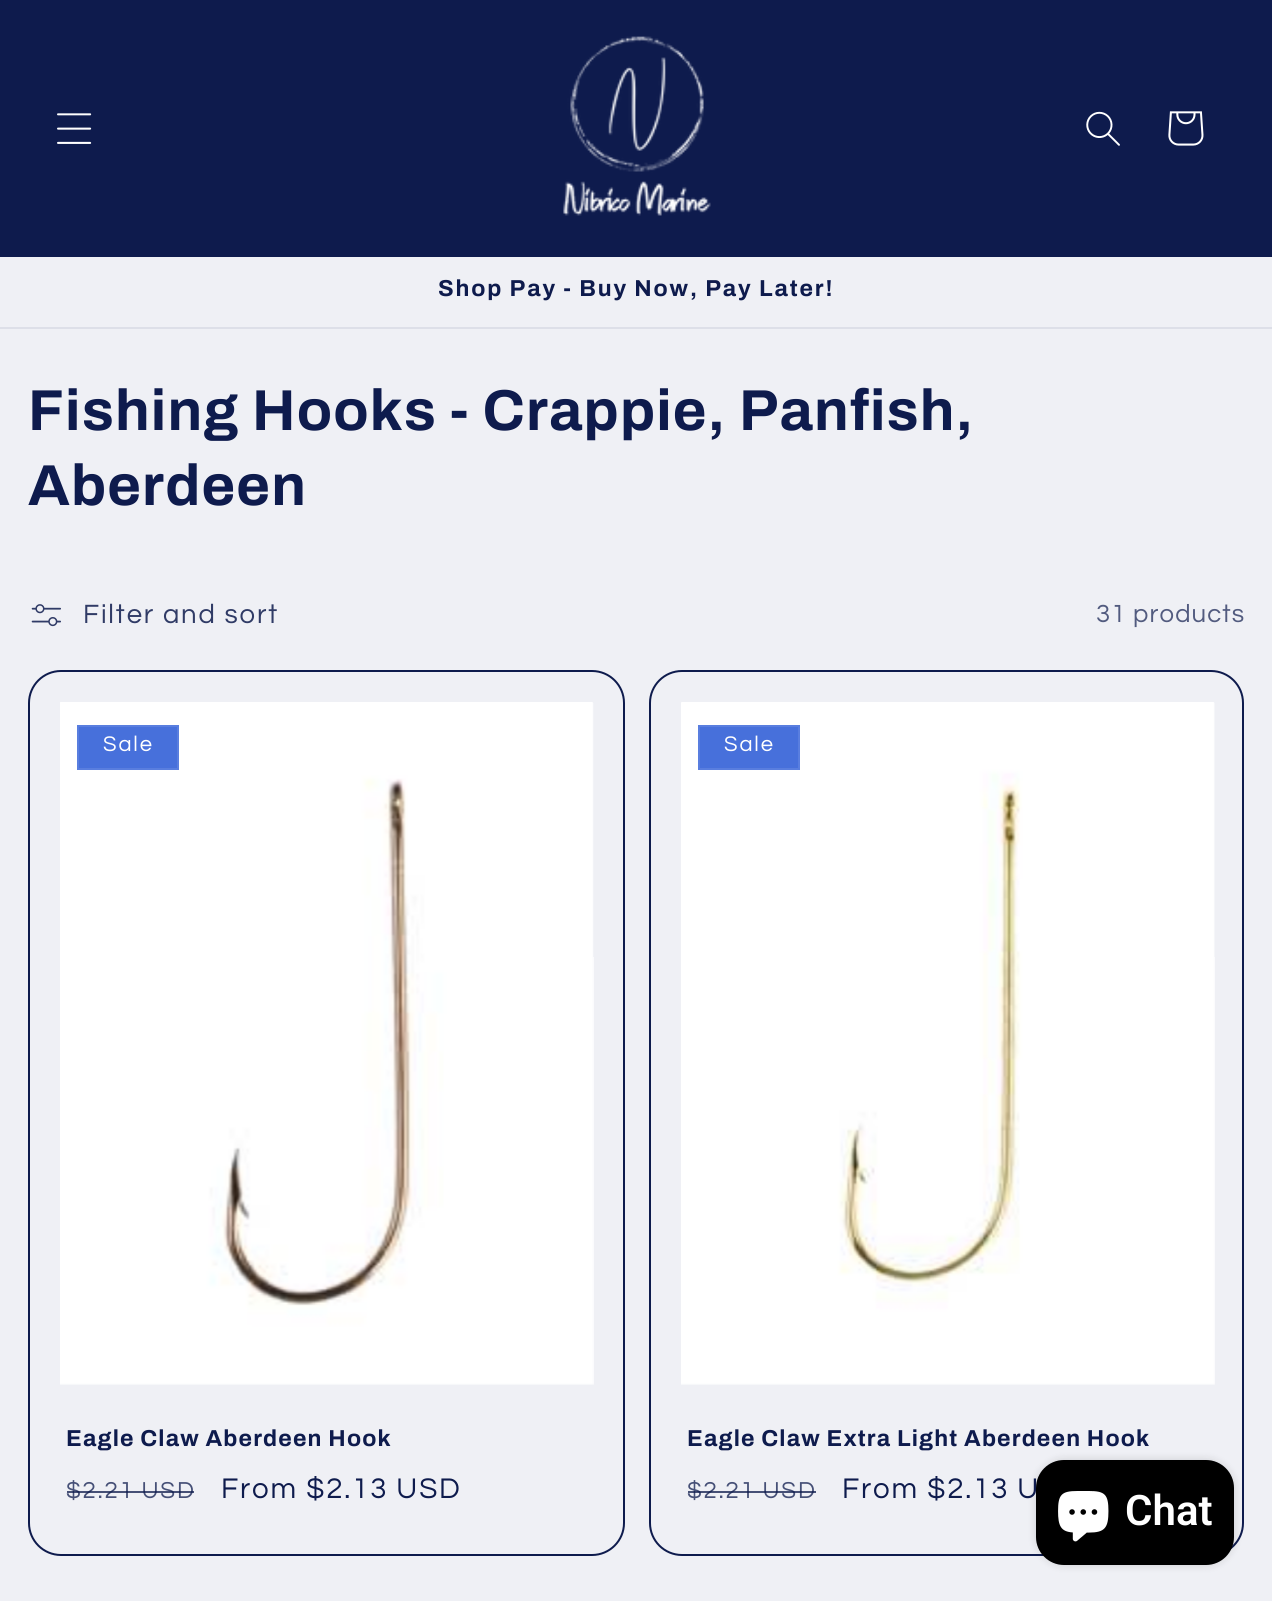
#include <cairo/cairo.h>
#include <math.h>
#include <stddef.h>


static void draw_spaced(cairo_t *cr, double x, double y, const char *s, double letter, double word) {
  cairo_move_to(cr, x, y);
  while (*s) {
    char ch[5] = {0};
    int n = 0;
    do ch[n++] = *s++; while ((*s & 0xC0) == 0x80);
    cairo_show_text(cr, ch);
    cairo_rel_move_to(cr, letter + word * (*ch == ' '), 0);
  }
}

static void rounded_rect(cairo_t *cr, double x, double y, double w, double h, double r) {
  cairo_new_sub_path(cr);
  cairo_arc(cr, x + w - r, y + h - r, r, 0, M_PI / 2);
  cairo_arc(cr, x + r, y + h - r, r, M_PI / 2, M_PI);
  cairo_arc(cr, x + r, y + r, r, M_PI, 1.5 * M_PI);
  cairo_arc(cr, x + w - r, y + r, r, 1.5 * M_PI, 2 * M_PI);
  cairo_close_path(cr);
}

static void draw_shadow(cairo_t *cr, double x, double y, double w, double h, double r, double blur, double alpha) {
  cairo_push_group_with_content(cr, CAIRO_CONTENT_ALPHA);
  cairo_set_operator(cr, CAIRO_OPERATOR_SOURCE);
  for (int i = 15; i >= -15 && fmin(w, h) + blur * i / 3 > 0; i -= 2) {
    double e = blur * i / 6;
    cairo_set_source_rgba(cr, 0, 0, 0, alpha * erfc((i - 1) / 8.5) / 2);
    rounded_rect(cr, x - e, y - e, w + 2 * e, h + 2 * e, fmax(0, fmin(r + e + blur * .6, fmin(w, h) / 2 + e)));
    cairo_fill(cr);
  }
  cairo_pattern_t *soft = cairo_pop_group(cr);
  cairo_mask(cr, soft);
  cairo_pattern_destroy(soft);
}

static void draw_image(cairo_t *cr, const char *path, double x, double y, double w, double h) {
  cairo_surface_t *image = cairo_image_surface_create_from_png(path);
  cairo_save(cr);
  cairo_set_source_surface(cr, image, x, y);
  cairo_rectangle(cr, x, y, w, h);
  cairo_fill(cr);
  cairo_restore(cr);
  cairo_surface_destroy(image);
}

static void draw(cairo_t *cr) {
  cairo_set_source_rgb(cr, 239 / 255.0, 240 / 255.0, 245 / 255.0);
  cairo_paint(cr);
  cairo_set_source_rgb(cr, 14 / 255.0, 27 / 255.0, 77 / 255.0);
  cairo_rectangle(cr, 0, 0, 1272, 257);
  cairo_fill(cr);
  draw_image(cr, "images/1.png", 57, 113, 35, 31);
  draw_image(cr, "images/2.png", 563, 36, 148, 180);
  draw_image(cr, "images/3.png", 1086, 111, 34, 35);
  draw_image(cr, "images/4.png", 1168, 111, 36, 35);
  cairo_set_source_rgb(cr, 221 / 255.0, 223 / 255.0, 232 / 255.0);
  cairo_rectangle(cr, 0, 327, 1272, 2);
  cairo_fill(cr);
  draw_image(cr, "images/5.png", 31, 604, 30, 23);
  rounded_rect(cr, 29, 671, 595, 884, 32);
  cairo_set_source_rgb(cr, 14 / 255.0, 27 / 255.0, 77 / 255.0);
  cairo_stroke(cr);
  draw_image(cr, "images/6.png", 60, 702, 534, 683);
  cairo_set_source_rgb(cr, 71 / 255.0, 112 / 255.0, 219 / 255.0);
  cairo_rectangle(cr, 78, 726, 100, 43);
  cairo_fill_preserve(cr);
  cairo_set_source_rgb(cr, 89 / 255.0, 126 / 255.0, 223 / 255.0);
  cairo_stroke(cr);
  rounded_rect(cr, 650, 671, 593, 884, 32);
  cairo_set_source_rgb(cr, 14 / 255.0, 27 / 255.0, 77 / 255.0);
  cairo_stroke(cr);
  draw_image(cr, "images/7.png", 681, 702, 534, 683);
  cairo_set_source_rgb(cr, 71 / 255.0, 112 / 255.0, 219 / 255.0);
  cairo_rectangle(cr, 699, 726, 100, 43);
  cairo_fill_preserve(cr);
  cairo_set_source_rgb(cr, 89 / 255.0, 126 / 255.0, 223 / 255.0);
  cairo_stroke(cr);
  cairo_set_source_rgb(cr, 0, 0, 0);
  draw_shadow(cr, 1036, 1460, 198, 105, 28, 4.5, 0.15);
  cairo_set_source_rgb(cr, 0, 0, 0);
  rounded_rect(cr, 1036, 1460, 198, 105, 28);
  cairo_fill(cr);
  draw_image(cr, "images/8.png", 1058, 1491, 51, 51);
  cairo_select_font_face(cr, "Archivo", CAIRO_FONT_SLANT_NORMAL, CAIRO_FONT_WEIGHT_BOLD);
  cairo_set_font_size(cr, 23.1);
  cairo_set_source_rgb(cr, 14 / 255.0, 27 / 255.0, 77 / 255.0);
  draw_spaced(cr, 438, 296, "Shop Pay - Buy Now, Pay Later!", 1.85, 0);
  cairo_set_font_size(cr, 57.75);
  draw_spaced(cr, 28, 430, "Fishing Hooks - Crappie, Panfish,", 1.15, 0);
  draw_spaced(cr, 28, 505, "Aberdeen", 1.15, 0);
  cairo_select_font_face(cr, "Questrial", CAIRO_FONT_SLANT_NORMAL, CAIRO_FONT_WEIGHT_NORMAL);
  cairo_set_font_size(cr, 27.5);
  cairo_set_source_rgb(cr, 48 / 255.0, 59 / 255.0, 102 / 255.0);
  draw_spaced(cr, 83, 623, "Filter and sort", 1.85, 0);
  cairo_set_font_size(cr, 25.75);
  cairo_set_source_rgb(cr, 82 / 255.0, 91 / 255.0, 127 / 255.0);
  draw_spaced(cr, 1096, 622, "31 products", 1.1, 0);
  cairo_set_font_size(cr, 22);
  cairo_set_source_rgb(cr, 1, 1, 1);
  draw_spaced(cr, 103, 751, "Sale", 1.85, 0);
  cairo_select_font_face(cr, "Archivo", CAIRO_FONT_SLANT_NORMAL, CAIRO_FONT_WEIGHT_BOLD);
  cairo_set_font_size(cr, 23.1);
  cairo_set_source_rgb(cr, 14 / 255.0, 27 / 255.0, 77 / 255.0);
  draw_spaced(cr, 66, 1446, "Eagle Claw Aberdeen Hook", 1.15, 0);
  cairo_select_font_face(cr, "Questrial", CAIRO_FONT_SLANT_NORMAL, CAIRO_FONT_WEIGHT_NORMAL);
  cairo_set_font_size(cr, 24);
  cairo_set_source_rgb(cr, 70 / 255.0, 80 / 255.0, 119 / 255.0);
  draw_spaced(cr, 66, 1498, "$2.21 USD", 1.85, 0);
  cairo_set_source_rgba(cr, 14 / 255.0, 27 / 255.0, 77 / 255.0, 0.75);
  cairo_rectangle(cr, 67, 1491, 127, 2);
  cairo_fill(cr);
  cairo_set_font_size(cr, 29.5);
  cairo_set_source_rgb(cr, 14 / 255.0, 27 / 255.0, 77 / 255.0);
  draw_spaced(cr, 221, 1498, "From $2.13 USD", 1.85, 0);
  cairo_set_font_size(cr, 22);
  cairo_set_source_rgb(cr, 1, 1, 1);
  draw_spaced(cr, 724, 751, "Sale", 1.85, 0);
  cairo_select_font_face(cr, "Archivo", CAIRO_FONT_SLANT_NORMAL, CAIRO_FONT_WEIGHT_BOLD);
  cairo_set_font_size(cr, 23.1);
  cairo_set_source_rgb(cr, 14 / 255.0, 27 / 255.0, 77 / 255.0);
  draw_spaced(cr, 687, 1446, "Eagle Claw Extra Light Aberdeen Hook", 1.15, 0);
  cairo_select_font_face(cr, "Questrial", CAIRO_FONT_SLANT_NORMAL, CAIRO_FONT_WEIGHT_NORMAL);
  cairo_set_font_size(cr, 24);
  cairo_set_source_rgb(cr, 70 / 255.0, 80 / 255.0, 119 / 255.0);
  draw_spaced(cr, 687, 1498, "$2.21 USD", 1.85, 0);
  cairo_set_source_rgba(cr, 14 / 255.0, 27 / 255.0, 77 / 255.0, 0.75);
  cairo_rectangle(cr, 688, 1491, 128, 2);
  cairo_fill(cr);
  cairo_set_font_size(cr, 29.5);
  cairo_set_source_rgb(cr, 14 / 255.0, 27 / 255.0, 77 / 255.0);
  draw_spaced(cr, 842, 1498, "From $2.13 U", 1.85, 0);
  cairo_select_font_face(cr, "Roboto SemiBold", CAIRO_FONT_SLANT_NORMAL, CAIRO_FONT_WEIGHT_NORMAL);
  cairo_set_font_size(cr, 42);
  cairo_set_source_rgb(cr, 1, 1, 1);
  cairo_move_to(cr, 1125, 1525);
  cairo_show_text(cr, "Chat");
}

int main(void) {
  cairo_surface_t *surface = cairo_image_surface_create(CAIRO_FORMAT_RGB24, 1272, 1601);
  cairo_t *cr = cairo_create(surface);
  cairo_font_options_t *options = cairo_font_options_create();
  cairo_font_options_set_hint_metrics(options, CAIRO_HINT_METRICS_OFF);
  cairo_font_options_set_hint_style(options, CAIRO_HINT_STYLE_NONE);
  cairo_set_font_options(cr, options);
  cairo_set_miter_limit(cr, 4);
  draw(cr);
  cairo_surface_write_to_png(surface, "out.png");
  cairo_font_options_destroy(options);
  cairo_destroy(cr);
  cairo_surface_destroy(surface);
  return 0;
}
